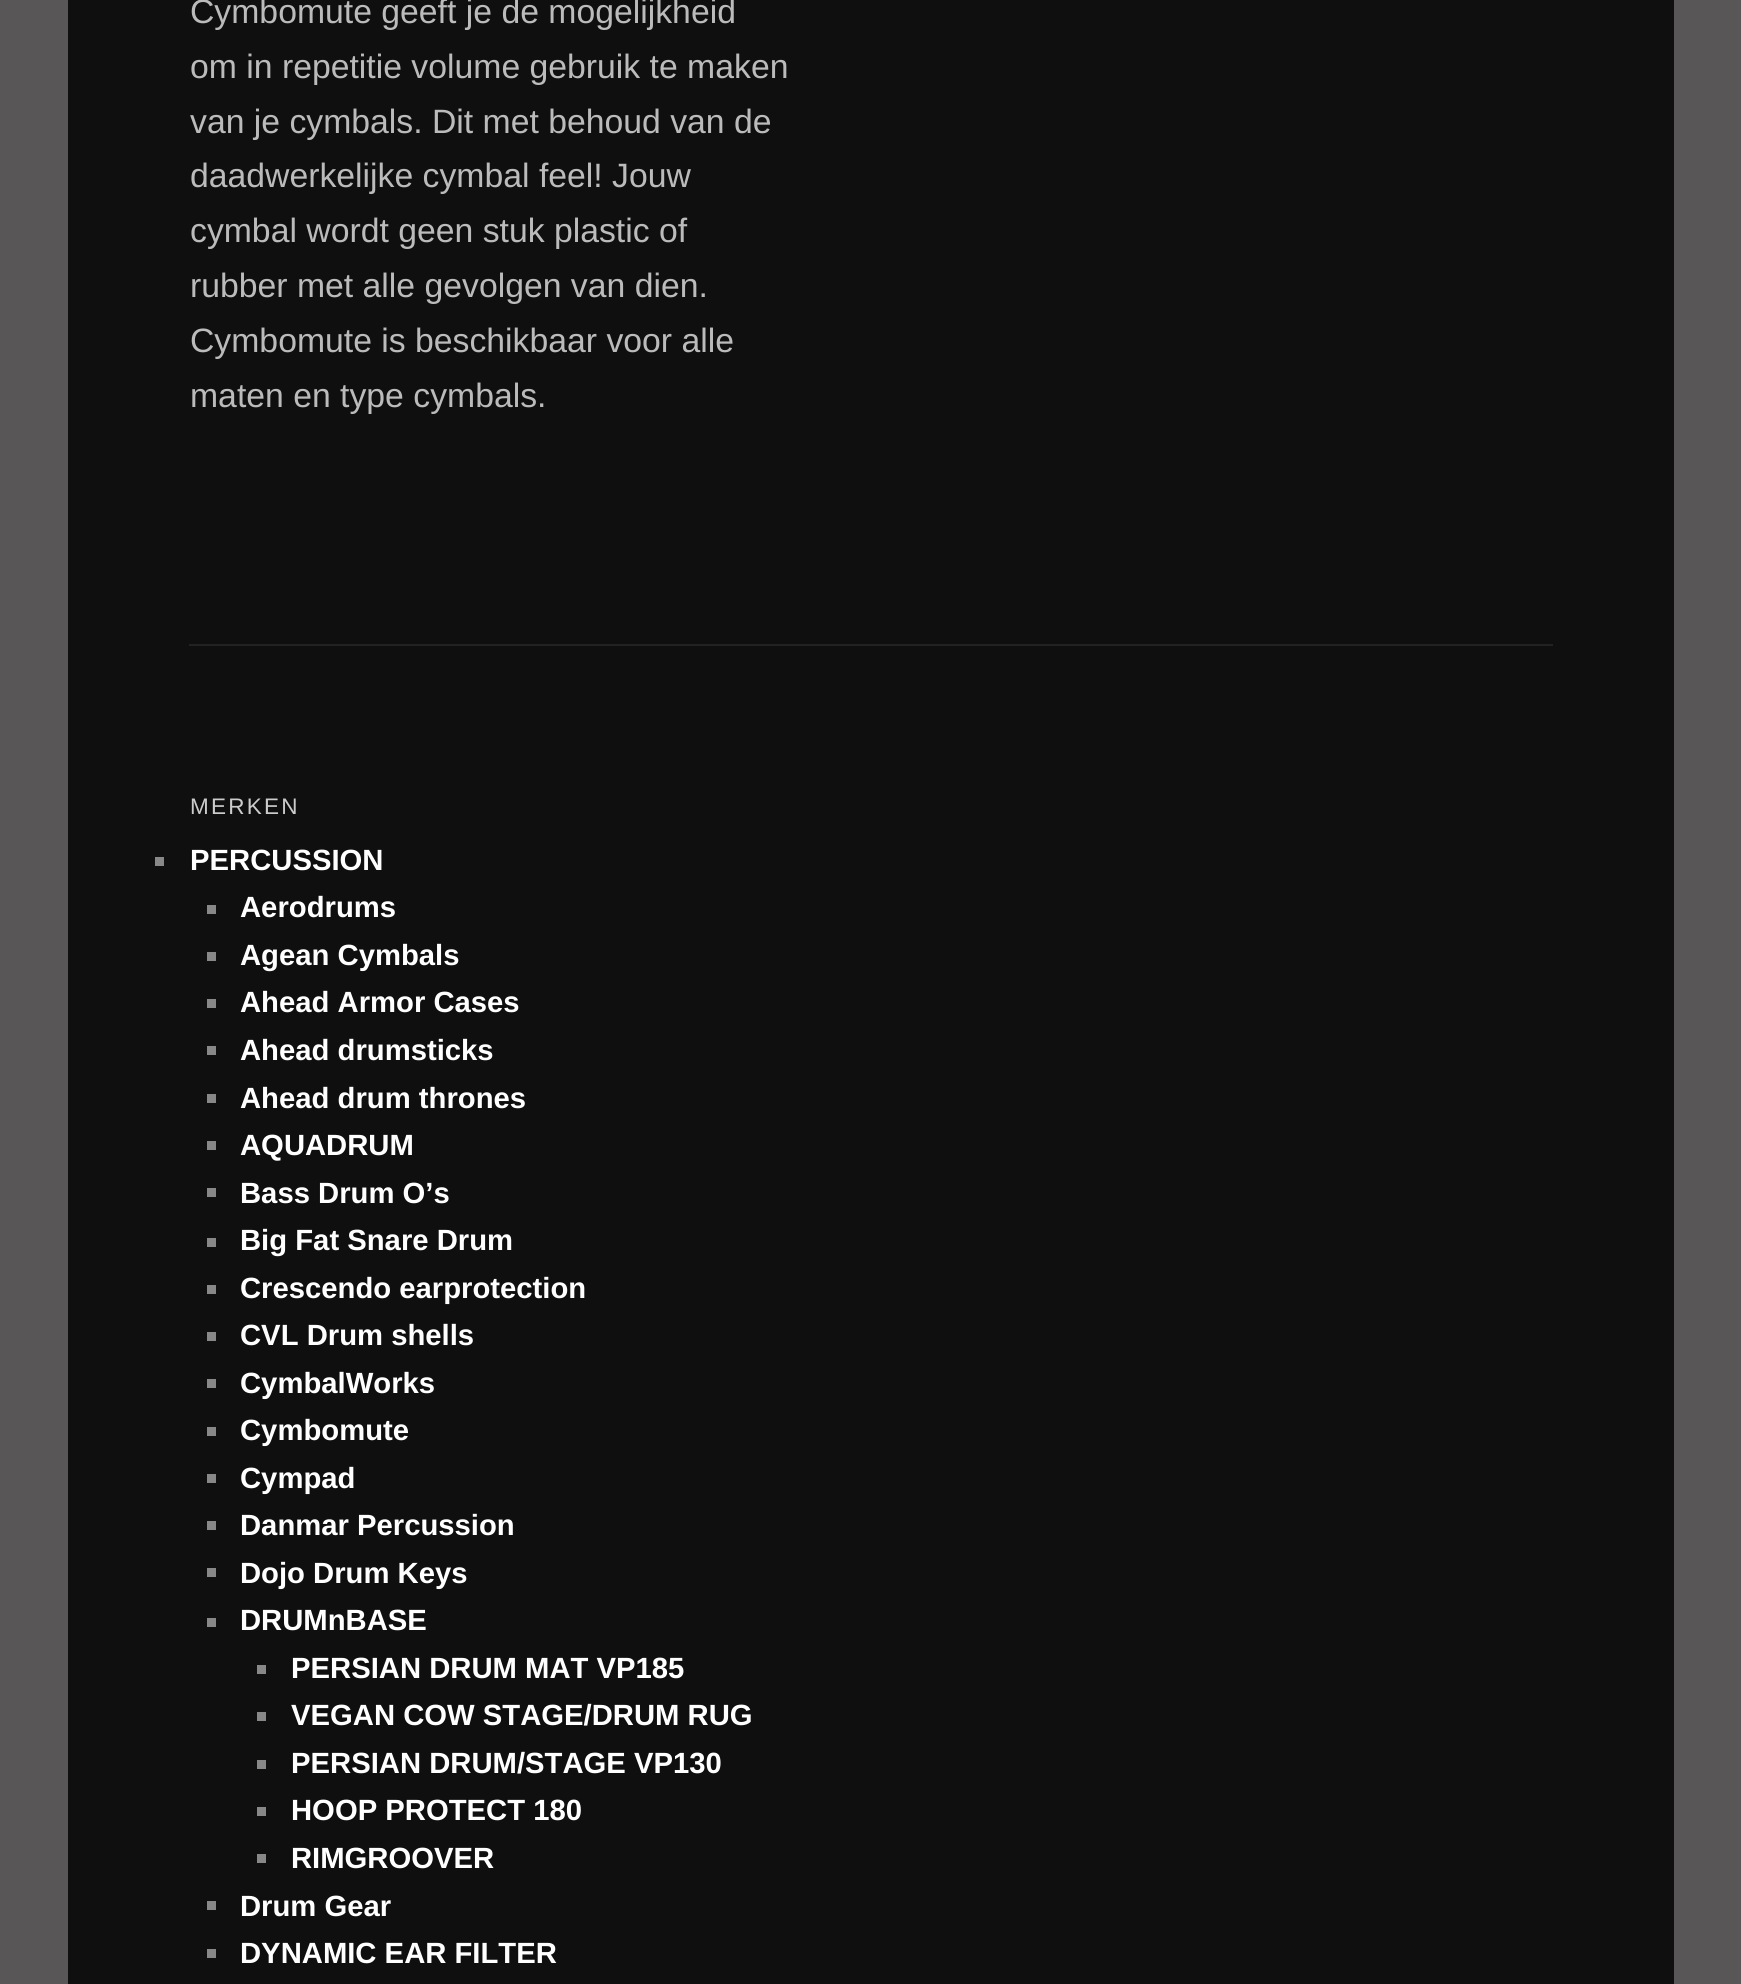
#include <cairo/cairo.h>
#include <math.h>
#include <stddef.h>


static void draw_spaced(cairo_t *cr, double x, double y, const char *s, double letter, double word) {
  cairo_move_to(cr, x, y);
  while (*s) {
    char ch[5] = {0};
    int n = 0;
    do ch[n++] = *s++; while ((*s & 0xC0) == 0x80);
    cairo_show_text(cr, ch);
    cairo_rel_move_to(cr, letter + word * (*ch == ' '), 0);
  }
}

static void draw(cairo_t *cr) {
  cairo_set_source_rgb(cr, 88 / 255.0, 86 / 255.0, 86 / 255.0);
  cairo_paint(cr);
  cairo_set_source_rgb(cr, 15 / 255.0, 15 / 255.0, 15 / 255.0);
  cairo_rectangle(cr, 68, 0, 1606, 1984);
  cairo_fill(cr);
  cairo_set_source_rgb(cr, 34 / 255.0, 34 / 255.0, 34 / 255.0);
  cairo_rectangle(cr, 189, 644, 1364, 2);
  cairo_fill(cr);
  cairo_set_source_rgb(cr, 136 / 255.0, 136 / 255.0, 136 / 255.0);
  cairo_rectangle(cr, 155, 857, 9, 9);
  cairo_fill(cr);
  cairo_rectangle(cr, 207, 905, 9, 9);
  cairo_fill(cr);
  cairo_rectangle(cr, 207, 952, 9, 9);
  cairo_fill(cr);
  cairo_rectangle(cr, 207, 999, 9, 9);
  cairo_fill(cr);
  cairo_rectangle(cr, 207, 1046, 9, 9);
  cairo_fill(cr);
  cairo_rectangle(cr, 207, 1094, 9, 9);
  cairo_fill(cr);
  cairo_rectangle(cr, 207, 1141, 9, 9);
  cairo_fill(cr);
  cairo_rectangle(cr, 207, 1188, 9, 9);
  cairo_fill(cr);
  cairo_rectangle(cr, 207, 1238, 9, 9);
  cairo_fill(cr);
  cairo_rectangle(cr, 207, 1285, 9, 9);
  cairo_fill(cr);
  cairo_rectangle(cr, 207, 1332, 9, 9);
  cairo_fill(cr);
  cairo_rectangle(cr, 207, 1379, 9, 9);
  cairo_fill(cr);
  cairo_rectangle(cr, 207, 1427, 9, 9);
  cairo_fill(cr);
  cairo_rectangle(cr, 207, 1474, 9, 9);
  cairo_fill(cr);
  cairo_rectangle(cr, 207, 1521, 9, 9);
  cairo_fill(cr);
  cairo_rectangle(cr, 207, 1568, 9, 9);
  cairo_fill(cr);
  cairo_rectangle(cr, 207, 1618, 9, 9);
  cairo_fill(cr);
  cairo_rectangle(cr, 257, 1665, 9, 9);
  cairo_fill(cr);
  cairo_rectangle(cr, 257, 1712, 9, 9);
  cairo_fill(cr);
  cairo_rectangle(cr, 257, 1760, 9, 9);
  cairo_fill(cr);
  cairo_rectangle(cr, 257, 1807, 9, 9);
  cairo_fill(cr);
  cairo_rectangle(cr, 257, 1854, 9, 9);
  cairo_fill(cr);
  cairo_rectangle(cr, 207, 1901, 9, 9);
  cairo_fill(cr);
  cairo_rectangle(cr, 207, 1949, 9, 9);
  cairo_fill(cr);
  cairo_select_font_face(cr, "Liberation Sans", CAIRO_FONT_SLANT_NORMAL, CAIRO_FONT_WEIGHT_NORMAL);
  cairo_set_font_size(cr, 33.75);
  cairo_set_source_rgb(cr, 187 / 255.0, 187 / 255.0, 187 / 255.0);
  cairo_move_to(cr, 190, 23);
  cairo_show_text(cr, "Cymbomute geeft je de mogelijkheid");
  cairo_move_to(cr, 190, 78);
  cairo_show_text(cr, "om in repetitie volume gebruik te maken");
  cairo_move_to(cr, 190, 133);
  cairo_show_text(cr, "van je cymbals. Dit met behoud van de");
  cairo_move_to(cr, 190, 187);
  cairo_show_text(cr, "daadwerkelijke cymbal feel! Jouw");
  cairo_move_to(cr, 190, 242);
  cairo_show_text(cr, "cymbal wordt geen stuk plastic of");
  cairo_move_to(cr, 190, 297);
  cairo_show_text(cr, "rubber met alle gevolgen van dien.");
  cairo_move_to(cr, 190, 352);
  cairo_show_text(cr, "Cymbomute is beschikbaar voor alle");
  cairo_move_to(cr, 190, 407);
  cairo_show_text(cr, "maten en type cymbals.");
  cairo_set_font_size(cr, 22.5);
  cairo_set_source_rgb(cr, 204 / 255.0, 204 / 255.0, 204 / 255.0);
  draw_spaced(cr, 190, 814, "MERKEN", 2.25, 0);
  cairo_select_font_face(cr, "Liberation Sans", CAIRO_FONT_SLANT_NORMAL, CAIRO_FONT_WEIGHT_BOLD);
  cairo_set_font_size(cr, 29.25);
  cairo_set_source_rgb(cr, 1, 1, 1);
  cairo_move_to(cr, 190, 870);
  cairo_show_text(cr, "PERCUSSION");
  cairo_move_to(cr, 240, 917);
  cairo_show_text(cr, "Aerodrums");
  cairo_move_to(cr, 240, 965);
  cairo_show_text(cr, "Agean Cymbals");
  cairo_move_to(cr, 240, 1012);
  cairo_show_text(cr, "Ahead Armor Cases");
  cairo_move_to(cr, 240, 1060);
  cairo_show_text(cr, "Ahead drumsticks");
  cairo_move_to(cr, 240, 1108);
  cairo_show_text(cr, "Ahead drum thrones");
  cairo_move_to(cr, 240, 1155);
  cairo_show_text(cr, "AQUADRUM");
  cairo_move_to(cr, 240, 1203);
  cairo_show_text(cr, "Bass Drum O’s");
  cairo_move_to(cr, 240, 1250);
  cairo_show_text(cr, "Big Fat Snare Drum");
  cairo_move_to(cr, 240, 1298);
  cairo_show_text(cr, "Crescendo earprotection");
  cairo_move_to(cr, 240, 1345);
  cairo_show_text(cr, "CVL Drum shells");
  cairo_move_to(cr, 240, 1393);
  cairo_show_text(cr, "CymbalWorks");
  cairo_move_to(cr, 240, 1440);
  cairo_show_text(cr, "Cymbomute");
  cairo_move_to(cr, 240, 1488);
  cairo_show_text(cr, "Cympad");
  cairo_move_to(cr, 240, 1535);
  cairo_show_text(cr, "Danmar Percussion");
  cairo_move_to(cr, 240, 1583);
  cairo_show_text(cr, "Dojo Drum Keys");
  cairo_move_to(cr, 240, 1630);
  cairo_show_text(cr, "DRUMnBASE");
  cairo_move_to(cr, 291, 1678);
  cairo_show_text(cr, "PERSIAN DRUM MAT VP185");
  cairo_move_to(cr, 291, 1725);
  cairo_show_text(cr, "VEGAN COW STAGE/DRUM RUG");
  cairo_move_to(cr, 291, 1773);
  cairo_show_text(cr, "PERSIAN DRUM/STAGE VP130");
  cairo_move_to(cr, 291, 1820);
  cairo_show_text(cr, "HOOP PROTECT 180");
  cairo_move_to(cr, 291, 1868);
  cairo_show_text(cr, "RIMGROOVER");
  cairo_move_to(cr, 240, 1916);
  cairo_show_text(cr, "Drum Gear");
  cairo_move_to(cr, 240, 1963);
  cairo_show_text(cr, "DYNAMIC EAR FILTER");
}

int main(void) {
  cairo_surface_t *surface = cairo_image_surface_create(CAIRO_FORMAT_RGB24, 1741, 1984);
  cairo_t *cr = cairo_create(surface);
  cairo_font_options_t *options = cairo_font_options_create();
  cairo_font_options_set_hint_metrics(options, CAIRO_HINT_METRICS_OFF);
  cairo_font_options_set_hint_style(options, CAIRO_HINT_STYLE_NONE);
  cairo_set_font_options(cr, options);
  cairo_set_miter_limit(cr, 4);
  draw(cr);
  cairo_surface_write_to_png(surface, "out.png");
  cairo_font_options_destroy(options);
  cairo_destroy(cr);
  cairo_surface_destroy(surface);
  return 0;
}
